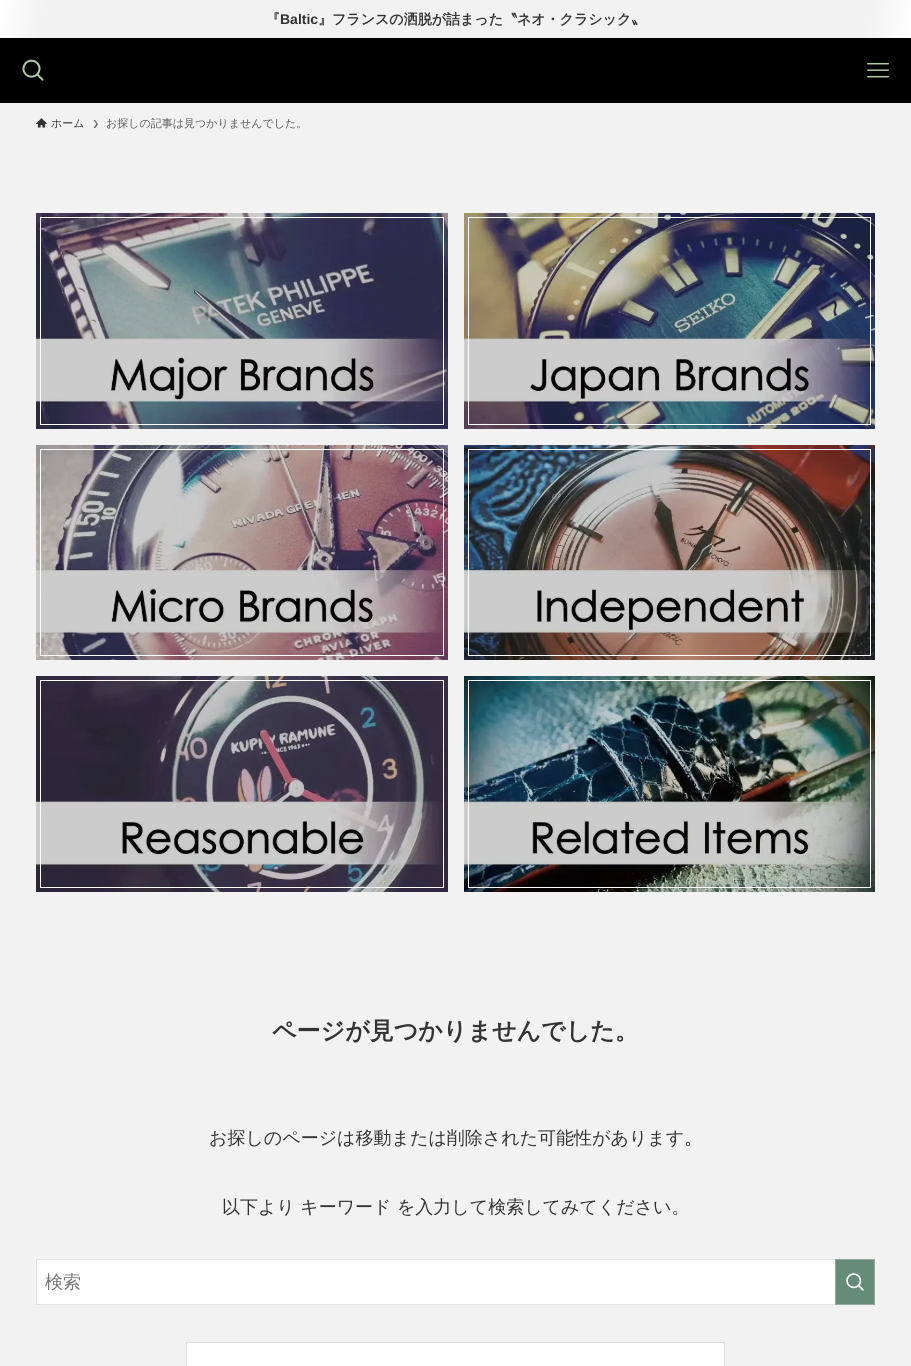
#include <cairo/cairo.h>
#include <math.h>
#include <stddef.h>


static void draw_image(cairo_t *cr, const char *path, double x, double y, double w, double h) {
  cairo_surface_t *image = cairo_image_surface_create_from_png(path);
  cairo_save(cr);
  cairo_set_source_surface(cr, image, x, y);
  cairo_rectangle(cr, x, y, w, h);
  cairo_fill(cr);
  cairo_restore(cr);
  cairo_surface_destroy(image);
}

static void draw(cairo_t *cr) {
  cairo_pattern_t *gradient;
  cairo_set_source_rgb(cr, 242 / 255.0, 242 / 255.0, 242 / 255.0);
  cairo_paint(cr);
  gradient = cairo_pattern_create_linear(10, -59, 901, 97);
  cairo_pattern_add_color_stop_rgba(gradient, 0, 1, 1, 1, 1);
  cairo_pattern_add_color_stop_rgba(gradient, 0.05, 242 / 255.0, 242 / 255.0, 242 / 255.0, 1);
  cairo_pattern_add_color_stop_rgba(gradient, 0.95, 242 / 255.0, 242 / 255.0, 242 / 255.0, 1);
  cairo_pattern_add_color_stop_rgba(gradient, 1, 1, 1, 1, 1);
  cairo_set_source(cr, gradient);
  cairo_pattern_destroy(gradient);
  cairo_rectangle(cr, 0, 0, 911, 38);
  cairo_fill(cr);
  cairo_set_source_rgb(cr, 0, 0, 0);
  cairo_rectangle(cr, 0, 38, 911, 65);
  cairo_fill(cr);
  draw_image(cr, "images/1.png", 22, 59, 22, 22);
  draw_image(cr, "images/2.png", 867, 62, 22, 16);
  draw_image(cr, "images/3.png", 36, 118, 11, 10);
  cairo_set_source_rgb(cr, 89 / 255.0, 89 / 255.0, 89 / 255.0);
  cairo_new_path(cr);
  cairo_move_to(cr, 95, 120);
  cairo_line_to(cr, 93.5, 120);
  cairo_line_to(cr, 96.5, 124);
  cairo_line_to(cr, 93.5, 128);
  cairo_line_to(cr, 95, 128);
  cairo_line_to(cr, 98, 124.5);
  cairo_close_path(cr);
  cairo_fill(cr);
  draw_image(cr, "images/4.png", 36, 213, 412, 216);
  cairo_rectangle(cr, 40.5, 217.5, 403, 207);
  cairo_set_source_rgb(cr, 1, 1, 1);
  cairo_set_line_width(cr, 1);
  cairo_stroke(cr);
  draw_image(cr, "images/5.png", 464, 213, 411, 216);
  cairo_rectangle(cr, 468.5, 217.5, 402, 207);
  cairo_stroke(cr);
  draw_image(cr, "images/6.png", 36, 445, 412, 215);
  cairo_rectangle(cr, 40.5, 449.5, 403, 206);
  cairo_stroke(cr);
  draw_image(cr, "images/7.png", 464, 445, 411, 215);
  cairo_rectangle(cr, 468.5, 449.5, 402, 206);
  cairo_stroke(cr);
  draw_image(cr, "images/8.png", 36, 676, 412, 216);
  cairo_rectangle(cr, 40.5, 680.5, 403, 207);
  cairo_stroke(cr);
  draw_image(cr, "images/9.png", 464, 676, 411, 216);
  cairo_rectangle(cr, 468.5, 680.5, 402, 207);
  cairo_stroke(cr);
  cairo_rectangle(cr, 37, 1260, 798, 44);
  cairo_fill(cr);
  cairo_rectangle(cr, 36.5, 1259.5, 838, 45);
  cairo_set_source_rgb(cr, 227 / 255.0, 227 / 255.0, 227 / 255.0);
  cairo_stroke(cr);
  cairo_set_source_rgb(cr, 100 / 255.0, 140 / 255.0, 120 / 255.0);
  cairo_rectangle(cr, 835.5, 1259.5, 39, 45);
  cairo_fill_preserve(cr);
  cairo_set_source_rgb(cr, 150 / 255.0, 170 / 255.0, 160 / 255.0);
  cairo_stroke(cr);
  draw_image(cr, "images/10.png", 846, 1273, 18, 18);
  cairo_rectangle(cr, 186.5, 1342.5, 538, 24);
  cairo_set_source_rgb(cr, 220 / 255.0, 220 / 255.0, 220 / 255.0);
  cairo_stroke(cr);
  cairo_set_source_rgb(cr, 1, 1, 1);
  cairo_rectangle(cr, 187, 1343, 537, 23);
  cairo_fill(cr);
  cairo_select_font_face(cr, "WenQuanYi Zen Hei", CAIRO_FONT_SLANT_NORMAL, CAIRO_FONT_WEIGHT_BOLD);
  cairo_set_font_size(cr, 14);
  cairo_set_source_rgb(cr, 51 / 255.0, 51 / 255.0, 51 / 255.0);
  cairo_move_to(cr, 266, 24);
  cairo_show_text(cr, "『");
  cairo_select_font_face(cr, "Liberation Sans", CAIRO_FONT_SLANT_NORMAL, CAIRO_FONT_WEIGHT_BOLD);
  cairo_move_to(cr, 280, 24);
  cairo_show_text(cr, "Baltic");
  cairo_select_font_face(cr, "WenQuanYi Zen Hei", CAIRO_FONT_SLANT_NORMAL, CAIRO_FONT_WEIGHT_BOLD);
  cairo_move_to(cr, 318, 24);
  cairo_show_text(cr, "』フランスの洒脱が詰まった〝ネオ・クラシック〟");
  cairo_select_font_face(cr, "WenQuanYi Zen Hei Medium", CAIRO_FONT_SLANT_NORMAL, CAIRO_FONT_WEIGHT_NORMAL);
  cairo_set_font_size(cr, 11);
  cairo_move_to(cr, 51, 127);
  cairo_show_text(cr, "ホーム");
  cairo_set_source_rgb(cr, 89 / 255.0, 89 / 255.0, 89 / 255.0);
  cairo_move_to(cr, 106, 127);
  cairo_show_text(cr, "お探しの記事は見つかりませんでした。");
  cairo_select_font_face(cr, "WenQuanYi Zen Hei", CAIRO_FONT_SLANT_NORMAL, CAIRO_FONT_WEIGHT_BOLD);
  cairo_set_font_size(cr, 24);
  cairo_set_source_rgb(cr, 51 / 255.0, 51 / 255.0, 51 / 255.0);
  cairo_move_to(cr, 272, 1039);
  cairo_show_text(cr, "ページが見つかりませんでした。");
  cairo_select_font_face(cr, "WenQuanYi Zen Hei Medium", CAIRO_FONT_SLANT_NORMAL, CAIRO_FONT_WEIGHT_NORMAL);
  cairo_set_font_size(cr, 18);
  cairo_move_to(cr, 209, 1144);
  cairo_show_text(cr, "お探しのページは移動または削除された可能性があります。");
  cairo_move_to(cr, 222, 1213);
  cairo_show_text(cr, "以下より キーワード を入力して検索してみてください。");
  cairo_set_source_rgb(cr, 117 / 255.0, 117 / 255.0, 117 / 255.0);
  cairo_move_to(cr, 45, 1288);
  cairo_show_text(cr, "検索");
}

int main(void) {
  cairo_surface_t *surface = cairo_image_surface_create(CAIRO_FORMAT_RGB24, 911, 1366);
  cairo_t *cr = cairo_create(surface);
  cairo_font_options_t *options = cairo_font_options_create();
  cairo_font_options_set_hint_metrics(options, CAIRO_HINT_METRICS_OFF);
  cairo_font_options_set_hint_style(options, CAIRO_HINT_STYLE_NONE);
  cairo_set_font_options(cr, options);
  cairo_set_miter_limit(cr, 4);
  draw(cr);
  cairo_surface_write_to_png(surface, "out.png");
  cairo_font_options_destroy(options);
  cairo_destroy(cr);
  cairo_surface_destroy(surface);
  return 0;
}
